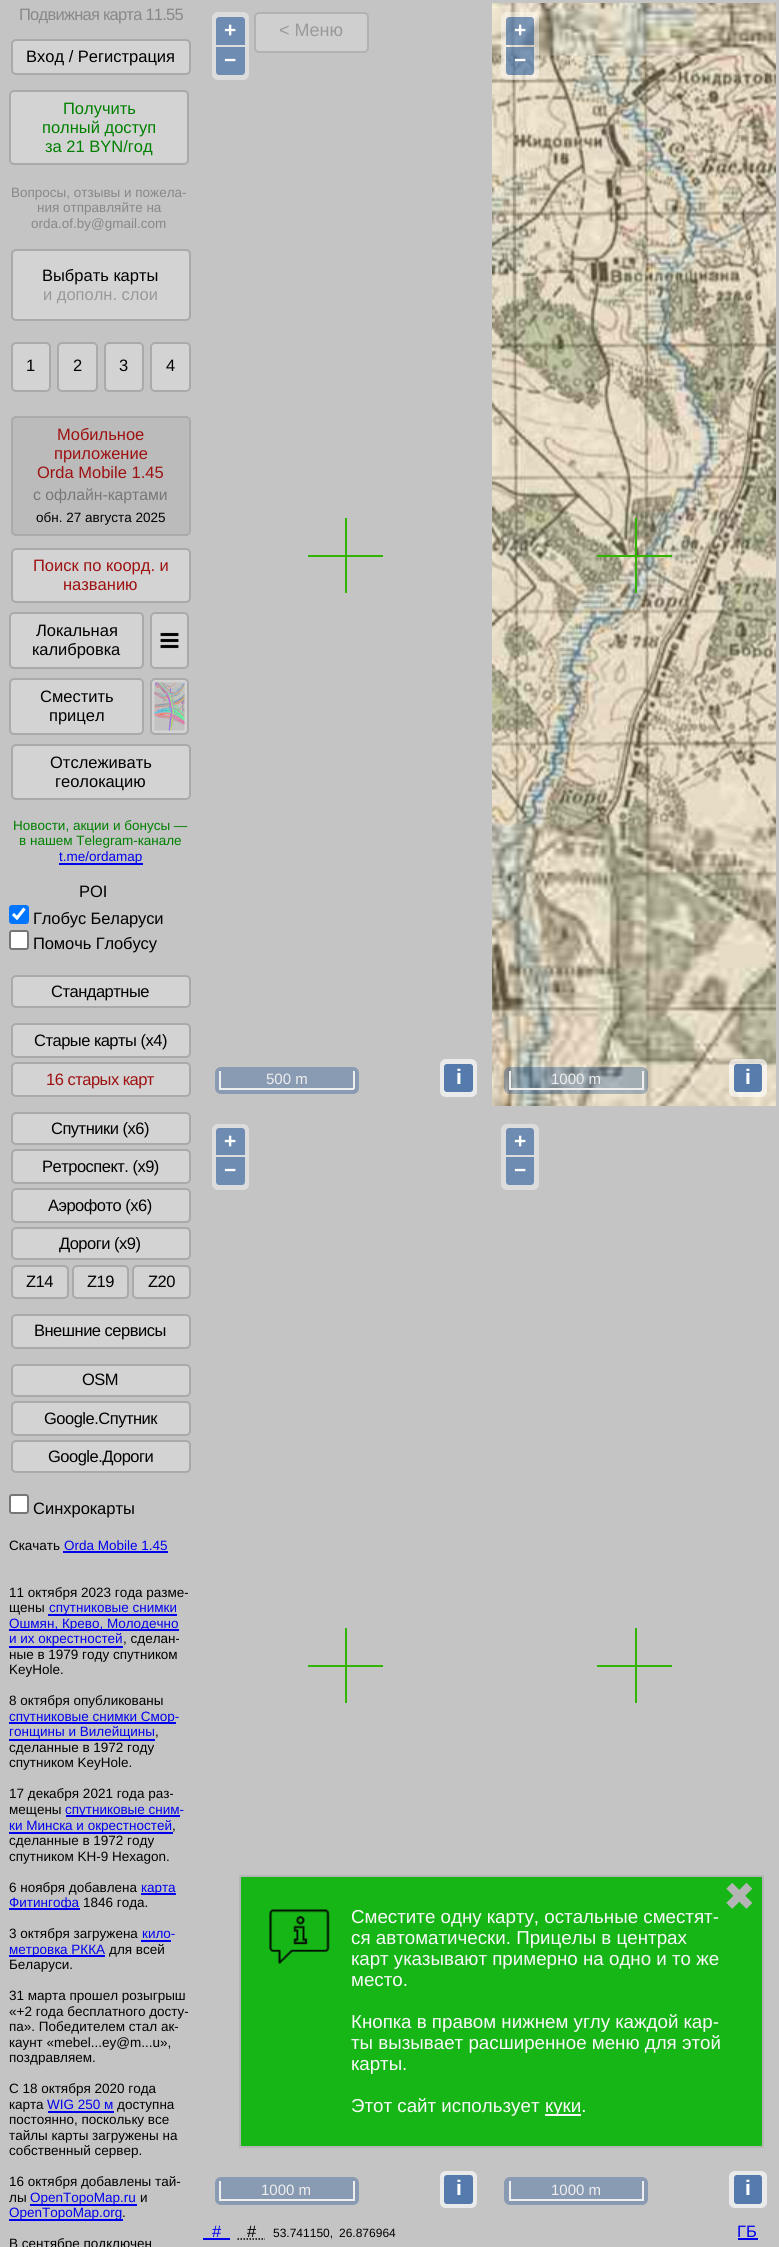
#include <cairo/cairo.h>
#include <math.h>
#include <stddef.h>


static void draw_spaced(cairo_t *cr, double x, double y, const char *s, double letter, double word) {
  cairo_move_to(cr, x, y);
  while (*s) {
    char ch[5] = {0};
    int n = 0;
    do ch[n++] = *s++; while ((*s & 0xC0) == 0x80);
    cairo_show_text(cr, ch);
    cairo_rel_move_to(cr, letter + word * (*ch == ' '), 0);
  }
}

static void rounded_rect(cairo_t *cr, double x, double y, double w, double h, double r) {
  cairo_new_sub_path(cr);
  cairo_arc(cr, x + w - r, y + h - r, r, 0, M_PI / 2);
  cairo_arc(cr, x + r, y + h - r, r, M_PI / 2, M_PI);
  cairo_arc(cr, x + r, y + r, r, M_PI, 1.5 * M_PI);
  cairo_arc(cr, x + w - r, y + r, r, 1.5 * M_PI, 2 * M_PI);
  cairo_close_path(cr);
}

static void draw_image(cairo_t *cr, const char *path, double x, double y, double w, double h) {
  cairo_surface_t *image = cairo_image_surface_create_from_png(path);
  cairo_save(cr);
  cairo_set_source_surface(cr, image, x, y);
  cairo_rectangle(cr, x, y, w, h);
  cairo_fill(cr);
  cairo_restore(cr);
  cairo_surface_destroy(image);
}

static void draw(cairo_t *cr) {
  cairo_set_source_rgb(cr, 196 / 255.0, 196 / 255.0, 196 / 255.0);
  cairo_paint(cr);
  cairo_set_source_rgb(cr, 211 / 255.0, 211 / 255.0, 211 / 255.0);
  rounded_rect(cr, 12, 40, 178, 34, 4);
  cairo_fill_preserve(cr);
  cairo_set_source_rgb(cr, 170 / 255.0, 170 / 255.0, 170 / 255.0);
  cairo_stroke(cr);
  cairo_set_source_rgb(cr, 211 / 255.0, 211 / 255.0, 211 / 255.0);
  rounded_rect(cr, 10, 91, 178, 73, 4);
  cairo_fill_preserve(cr);
  cairo_set_source_rgb(cr, 170 / 255.0, 170 / 255.0, 170 / 255.0);
  cairo_stroke(cr);
  cairo_set_source_rgb(cr, 211 / 255.0, 211 / 255.0, 211 / 255.0);
  rounded_rect(cr, 12, 250, 178, 70, 4);
  cairo_fill_preserve(cr);
  cairo_set_source_rgb(cr, 170 / 255.0, 170 / 255.0, 170 / 255.0);
  cairo_stroke(cr);
  cairo_set_source_rgb(cr, 211 / 255.0, 211 / 255.0, 211 / 255.0);
  rounded_rect(cr, 12, 343, 38, 48, 4);
  cairo_fill_preserve(cr);
  cairo_set_source_rgb(cr, 170 / 255.0, 170 / 255.0, 170 / 255.0);
  cairo_stroke(cr);
  cairo_set_source_rgb(cr, 211 / 255.0, 211 / 255.0, 211 / 255.0);
  rounded_rect(cr, 58, 343, 39, 48, 4);
  cairo_fill_preserve(cr);
  cairo_set_source_rgb(cr, 170 / 255.0, 170 / 255.0, 170 / 255.0);
  cairo_stroke(cr);
  cairo_set_source_rgb(cr, 211 / 255.0, 211 / 255.0, 211 / 255.0);
  rounded_rect(cr, 105, 343, 38, 48, 4);
  cairo_fill_preserve(cr);
  cairo_set_source_rgb(cr, 170 / 255.0, 170 / 255.0, 170 / 255.0);
  cairo_stroke(cr);
  cairo_set_source_rgb(cr, 211 / 255.0, 211 / 255.0, 211 / 255.0);
  rounded_rect(cr, 151, 343, 39, 48, 4);
  cairo_fill_preserve(cr);
  cairo_set_source_rgb(cr, 170 / 255.0, 170 / 255.0, 170 / 255.0);
  cairo_stroke(cr);
  cairo_set_source_rgb(cr, 187 / 255.0, 187 / 255.0, 187 / 255.0);
  rounded_rect(cr, 12, 417, 178, 118, 4);
  cairo_fill_preserve(cr);
  cairo_set_source_rgb(cr, 170 / 255.0, 170 / 255.0, 170 / 255.0);
  cairo_stroke(cr);
  cairo_set_source_rgb(cr, 211 / 255.0, 211 / 255.0, 211 / 255.0);
  rounded_rect(cr, 12, 549, 178, 53, 4);
  cairo_fill_preserve(cr);
  cairo_set_source_rgb(cr, 170 / 255.0, 170 / 255.0, 170 / 255.0);
  cairo_stroke(cr);
  cairo_set_source_rgb(cr, 211 / 255.0, 211 / 255.0, 211 / 255.0);
  rounded_rect(cr, 10, 613, 133, 55, 4);
  cairo_fill_preserve(cr);
  cairo_set_source_rgb(cr, 170 / 255.0, 170 / 255.0, 170 / 255.0);
  cairo_stroke(cr);
  cairo_set_source_rgb(cr, 211 / 255.0, 211 / 255.0, 211 / 255.0);
  rounded_rect(cr, 151, 613, 37, 55, 4);
  cairo_fill_preserve(cr);
  cairo_set_source_rgb(cr, 170 / 255.0, 170 / 255.0, 170 / 255.0);
  cairo_stroke(cr);
  draw_image(cr, "images/1.png", 160, 632, 19, 17);
  cairo_set_source_rgb(cr, 211 / 255.0, 211 / 255.0, 211 / 255.0);
  rounded_rect(cr, 10, 679, 133, 55, 4);
  cairo_fill_preserve(cr);
  cairo_set_source_rgb(cr, 170 / 255.0, 170 / 255.0, 170 / 255.0);
  cairo_stroke(cr);
  cairo_set_source_rgb(cr, 211 / 255.0, 211 / 255.0, 211 / 255.0);
  rounded_rect(cr, 151, 679, 37, 55, 4);
  cairo_fill_preserve(cr);
  cairo_set_source_rgb(cr, 170 / 255.0, 170 / 255.0, 170 / 255.0);
  cairo_stroke(cr);
  draw_image(cr, "images/2.png", 154, 682, 31, 49);
  cairo_set_source_rgb(cr, 211 / 255.0, 211 / 255.0, 211 / 255.0);
  rounded_rect(cr, 12, 745, 178, 54, 4);
  cairo_fill_preserve(cr);
  cairo_set_source_rgb(cr, 170 / 255.0, 170 / 255.0, 170 / 255.0);
  cairo_stroke(cr);
  cairo_set_source_rgb(cr, 0, 0, 238 / 255.0);
  cairo_rectangle(cr, 59, 863, 84, 2);
  cairo_fill(cr);
  cairo_set_source_rgb(cr, 0, 117 / 255.0, 1);
  rounded_rect(cr, 9, 905, 20, 19, 3);
  cairo_fill(cr);
  cairo_new_path(cr);
  cairo_move_to(cr, 13, 914);
  cairo_line_to(cr, 17, 918);
  cairo_line_to(cr, 24.5, 908.5);
  cairo_set_source_rgb(cr, 1, 1, 1);
  cairo_set_line_width(cr, 3.1);
  cairo_stroke(cr);
  rounded_rect(cr, 10, 931, 18, 18, 2);
  cairo_fill_preserve(cr);
  cairo_set_source_rgb(cr, 118 / 255.0, 118 / 255.0, 118 / 255.0);
  cairo_set_line_width(cr, 2);
  cairo_stroke(cr);
  cairo_set_source_rgb(cr, 211 / 255.0, 211 / 255.0, 211 / 255.0);
  rounded_rect(cr, 12, 976, 178, 31, 4);
  cairo_fill_preserve(cr);
  cairo_set_source_rgb(cr, 170 / 255.0, 170 / 255.0, 170 / 255.0);
  cairo_stroke(cr);
  cairo_set_source_rgb(cr, 211 / 255.0, 211 / 255.0, 211 / 255.0);
  rounded_rect(cr, 12, 1024, 178, 33, 4);
  cairo_fill_preserve(cr);
  cairo_set_source_rgb(cr, 170 / 255.0, 170 / 255.0, 170 / 255.0);
  cairo_stroke(cr);
  cairo_set_source_rgb(cr, 211 / 255.0, 211 / 255.0, 211 / 255.0);
  rounded_rect(cr, 12, 1063, 178, 33, 4);
  cairo_fill_preserve(cr);
  cairo_set_source_rgb(cr, 170 / 255.0, 170 / 255.0, 170 / 255.0);
  cairo_stroke(cr);
  cairo_set_source_rgb(cr, 211 / 255.0, 211 / 255.0, 211 / 255.0);
  rounded_rect(cr, 12, 1113, 178, 31, 4);
  cairo_fill_preserve(cr);
  cairo_set_source_rgb(cr, 170 / 255.0, 170 / 255.0, 170 / 255.0);
  cairo_stroke(cr);
  cairo_set_source_rgb(cr, 211 / 255.0, 211 / 255.0, 211 / 255.0);
  rounded_rect(cr, 12, 1150, 178, 33, 4);
  cairo_fill_preserve(cr);
  cairo_set_source_rgb(cr, 170 / 255.0, 170 / 255.0, 170 / 255.0);
  cairo_stroke(cr);
  cairo_set_source_rgb(cr, 211 / 255.0, 211 / 255.0, 211 / 255.0);
  rounded_rect(cr, 12, 1189, 178, 33, 4);
  cairo_fill_preserve(cr);
  cairo_set_source_rgb(cr, 170 / 255.0, 170 / 255.0, 170 / 255.0);
  cairo_stroke(cr);
  cairo_set_source_rgb(cr, 211 / 255.0, 211 / 255.0, 211 / 255.0);
  rounded_rect(cr, 12, 1228, 178, 31, 4);
  cairo_fill_preserve(cr);
  cairo_set_source_rgb(cr, 170 / 255.0, 170 / 255.0, 170 / 255.0);
  cairo_stroke(cr);
  cairo_set_source_rgb(cr, 211 / 255.0, 211 / 255.0, 211 / 255.0);
  rounded_rect(cr, 12, 1266, 56, 32, 4);
  cairo_fill_preserve(cr);
  cairo_set_source_rgb(cr, 170 / 255.0, 170 / 255.0, 170 / 255.0);
  cairo_stroke(cr);
  cairo_set_source_rgb(cr, 211 / 255.0, 211 / 255.0, 211 / 255.0);
  rounded_rect(cr, 73, 1266, 55, 32, 4);
  cairo_fill_preserve(cr);
  cairo_set_source_rgb(cr, 170 / 255.0, 170 / 255.0, 170 / 255.0);
  cairo_stroke(cr);
  cairo_set_source_rgb(cr, 211 / 255.0, 211 / 255.0, 211 / 255.0);
  rounded_rect(cr, 133, 1266, 57, 32, 4);
  cairo_fill_preserve(cr);
  cairo_set_source_rgb(cr, 170 / 255.0, 170 / 255.0, 170 / 255.0);
  cairo_stroke(cr);
  cairo_set_source_rgb(cr, 211 / 255.0, 211 / 255.0, 211 / 255.0);
  rounded_rect(cr, 12, 1315, 178, 33, 4);
  cairo_fill_preserve(cr);
  cairo_set_source_rgb(cr, 170 / 255.0, 170 / 255.0, 170 / 255.0);
  cairo_stroke(cr);
  cairo_set_source_rgb(cr, 211 / 255.0, 211 / 255.0, 211 / 255.0);
  rounded_rect(cr, 12, 1365, 178, 31, 4);
  cairo_fill_preserve(cr);
  cairo_set_source_rgb(cr, 170 / 255.0, 170 / 255.0, 170 / 255.0);
  cairo_stroke(cr);
  cairo_set_source_rgb(cr, 211 / 255.0, 211 / 255.0, 211 / 255.0);
  rounded_rect(cr, 12, 1402, 178, 33, 4);
  cairo_fill_preserve(cr);
  cairo_set_source_rgb(cr, 170 / 255.0, 170 / 255.0, 170 / 255.0);
  cairo_stroke(cr);
  cairo_set_source_rgb(cr, 211 / 255.0, 211 / 255.0, 211 / 255.0);
  rounded_rect(cr, 12, 1441, 178, 31, 4);
  cairo_fill_preserve(cr);
  cairo_set_source_rgb(cr, 170 / 255.0, 170 / 255.0, 170 / 255.0);
  cairo_stroke(cr);
  cairo_set_source_rgb(cr, 1, 1, 1);
  rounded_rect(cr, 10, 1495, 18, 18, 2);
  cairo_fill_preserve(cr);
  cairo_set_source_rgb(cr, 118 / 255.0, 118 / 255.0, 118 / 255.0);
  cairo_stroke(cr);
  cairo_set_source_rgb(cr, 0, 0, 238 / 255.0);
  cairo_rectangle(cr, 63, 1551, 105, 2);
  cairo_fill(cr);
  cairo_rectangle(cr, 48, 1614, 129, 2);
  cairo_fill(cr);
  cairo_rectangle(cr, 9, 1629, 170, 2);
  cairo_fill(cr);
  cairo_rectangle(cr, 9, 1646, 114, 2);
  cairo_fill(cr);
  cairo_rectangle(cr, 9, 1722, 167, 2);
  cairo_fill(cr);
  cairo_rectangle(cr, 9, 1739, 146, 2);
  cairo_fill(cr);
  cairo_rectangle(cr, 66, 1815, 114, 2);
  cairo_fill(cr);
  cairo_rectangle(cr, 9, 1832, 164, 2);
  cairo_fill(cr);
  cairo_rectangle(cr, 141, 1893, 35, 2);
  cairo_fill(cr);
  cairo_rectangle(cr, 9, 1908, 71, 2);
  cairo_fill(cr);
  cairo_rectangle(cr, 141, 1940, 30, 2);
  cairo_fill(cr);
  cairo_rectangle(cr, 9, 1955, 96, 2);
  cairo_fill(cr);
  cairo_rectangle(cr, 48, 2111, 66, 2);
  cairo_fill(cr);
  cairo_rectangle(cr, 30, 2204, 107, 2);
  cairo_fill(cr);
  cairo_rectangle(cr, 9, 2219, 114, 2);
  cairo_fill(cr);
  cairo_set_source_rgb(cr, 207 / 255.0, 207 / 255.0, 207 / 255.0);
  rounded_rect(cr, 255, 13, 113, 39, 4);
  cairo_fill_preserve(cr);
  cairo_set_source_rgb(cr, 178 / 255.0, 178 / 255.0, 178 / 255.0);
  cairo_stroke(cr);
  cairo_set_source_rgb(cr, 220 / 255.0, 220 / 255.0, 220 / 255.0);
  rounded_rect(cr, 212, 12, 37, 68, 6);
  cairo_fill(cr);
  cairo_set_source_rgb(cr, 110 / 255.0, 140 / 255.0, 178 / 255.0);
  cairo_new_path(cr);
  cairo_move_to(cr, 219, 17);
  cairo_line_to(cr, 242, 17);
  cairo_curve_to(cr, 243.5, 17, 245, 18.5, 245, 20);
  cairo_line_to(cr, 245, 45);
  cairo_line_to(cr, 216, 45);
  cairo_line_to(cr, 216, 20);
  cairo_curve_to(cr, 216, 18.5, 217.5, 17, 219, 17);
  cairo_close_path(cr);
  cairo_fill(cr);
  cairo_new_path(cr);
  cairo_move_to(cr, 216, 47);
  cairo_line_to(cr, 245, 47);
  cairo_line_to(cr, 245, 72);
  cairo_curve_to(cr, 245, 73.5, 243.5, 75, 242, 75);
  cairo_line_to(cr, 219, 75);
  cairo_curve_to(cr, 217.5, 75, 216, 73.5, 216, 72);
  cairo_close_path(cr);
  cairo_fill(cr);
  cairo_set_source_rgb(cr, 220 / 255.0, 220 / 255.0, 220 / 255.0);
  rounded_rect(cr, 440, 1059, 37, 38, 6);
  cairo_fill(cr);
  cairo_set_source_rgb(cr, 110 / 255.0, 140 / 255.0, 178 / 255.0);
  rounded_rect(cr, 444, 1064, 29, 28, 3);
  cairo_fill(cr);
  cairo_set_source_rgb(cr, 137 / 255.0, 155 / 255.0, 178 / 255.0);
  rounded_rect(cr, 215, 1067, 144, 27, 6);
  cairo_fill(cr);
  cairo_set_source_rgb(cr, 238 / 255.0, 238 / 255.0, 238 / 255.0);
  cairo_rectangle(cr, 353, 1071, 2, 18);
  cairo_fill(cr);
  cairo_rectangle(cr, 219, 1088, 135, 2);
  cairo_fill(cr);
  cairo_rectangle(cr, 219, 1071, 2, 18);
  cairo_fill(cr);
  cairo_set_source_rgb(cr, 49 / 255.0, 180 / 255.0, 4 / 255.0);
  cairo_rectangle(cr, 345, 518, 2, 75);
  cairo_fill(cr);
  cairo_rectangle(cr, 308, 555, 75, 2);
  cairo_fill(cr);
  draw_image(cr, "images/3.png", 492, 3, 284, 1103);
  cairo_set_source_rgba(cr, 1, 1, 1, 0.4);
  rounded_rect(cr, 501, 12, 38, 68, 6);
  cairo_fill(cr);
  cairo_set_source_rgba(cr, 0, 60 / 255.0, 136 / 255.0, 0.5);
  cairo_new_path(cr);
  cairo_move_to(cr, 509, 17);
  cairo_line_to(cr, 531, 17);
  cairo_curve_to(cr, 532.5, 17, 534, 18.5, 534, 20);
  cairo_line_to(cr, 534, 45);
  cairo_line_to(cr, 506, 45);
  cairo_line_to(cr, 506, 20);
  cairo_curve_to(cr, 506, 18.5, 507.5, 17, 509, 17);
  cairo_close_path(cr);
  cairo_fill(cr);
  cairo_new_path(cr);
  cairo_move_to(cr, 506, 47);
  cairo_line_to(cr, 534, 47);
  cairo_line_to(cr, 534, 72);
  cairo_curve_to(cr, 534, 73.5, 532.5, 75, 531, 75);
  cairo_line_to(cr, 509, 75);
  cairo_curve_to(cr, 507.5, 75, 506, 73.5, 506, 72);
  cairo_close_path(cr);
  cairo_fill(cr);
  cairo_set_source_rgba(cr, 1, 1, 1, 0.4);
  rounded_rect(cr, 729, 1059, 38, 38, 6);
  cairo_fill(cr);
  cairo_set_source_rgba(cr, 0, 60 / 255.0, 136 / 255.0, 0.5);
  rounded_rect(cr, 734, 1064, 28, 28, 3);
  cairo_fill(cr);
  cairo_set_source_rgba(cr, 0, 60 / 255.0, 136 / 255.0, 0.3);
  rounded_rect(cr, 504, 1067, 144, 27, 6);
  cairo_fill(cr);
  cairo_set_source_rgb(cr, 238 / 255.0, 238 / 255.0, 238 / 255.0);
  cairo_rectangle(cr, 642, 1071, 2, 18);
  cairo_fill(cr);
  cairo_rectangle(cr, 509, 1088, 135, 2);
  cairo_fill(cr);
  cairo_rectangle(cr, 509, 1071, 2, 18);
  cairo_fill(cr);
  cairo_set_source_rgb(cr, 49 / 255.0, 180 / 255.0, 4 / 255.0);
  cairo_rectangle(cr, 635, 518, 2, 75);
  cairo_fill(cr);
  cairo_rectangle(cr, 597, 555, 75, 2);
  cairo_fill(cr);
  cairo_set_source_rgb(cr, 220 / 255.0, 220 / 255.0, 220 / 255.0);
  rounded_rect(cr, 212, 1124, 37, 66, 6);
  cairo_fill(cr);
  cairo_set_source_rgb(cr, 110 / 255.0, 140 / 255.0, 178 / 255.0);
  cairo_new_path(cr);
  cairo_move_to(cr, 219, 1128);
  cairo_line_to(cr, 242, 1128);
  cairo_curve_to(cr, 243.5, 1128, 245, 1129.5, 245, 1131);
  cairo_line_to(cr, 245, 1155);
  cairo_line_to(cr, 216, 1155);
  cairo_line_to(cr, 216, 1131);
  cairo_curve_to(cr, 216, 1129.5, 217.5, 1128, 219, 1128);
  cairo_close_path(cr);
  cairo_fill(cr);
  cairo_new_path(cr);
  cairo_move_to(cr, 216, 1157);
  cairo_line_to(cr, 245, 1157);
  cairo_line_to(cr, 245, 1182);
  cairo_curve_to(cr, 245, 1183.5, 243.5, 1185, 242, 1185);
  cairo_line_to(cr, 219, 1185);
  cairo_curve_to(cr, 217.5, 1185, 216, 1183.5, 216, 1182);
  cairo_close_path(cr);
  cairo_fill(cr);
  cairo_set_source_rgb(cr, 220 / 255.0, 220 / 255.0, 220 / 255.0);
  rounded_rect(cr, 440, 2171, 37, 37, 6);
  cairo_fill(cr);
  cairo_set_source_rgb(cr, 110 / 255.0, 140 / 255.0, 178 / 255.0);
  rounded_rect(cr, 444, 2175, 29, 29, 3);
  cairo_fill(cr);
  cairo_set_source_rgb(cr, 137 / 255.0, 155 / 255.0, 178 / 255.0);
  rounded_rect(cr, 215, 2177, 144, 28, 6);
  cairo_fill(cr);
  cairo_set_source_rgb(cr, 238 / 255.0, 238 / 255.0, 238 / 255.0);
  cairo_rectangle(cr, 353, 2181, 2, 20);
  cairo_fill(cr);
  cairo_rectangle(cr, 219, 2199, 135, 2);
  cairo_fill(cr);
  cairo_rectangle(cr, 219, 2181, 2, 20);
  cairo_fill(cr);
  cairo_set_source_rgb(cr, 49 / 255.0, 180 / 255.0, 4 / 255.0);
  cairo_rectangle(cr, 345, 1628, 2, 75);
  cairo_fill(cr);
  cairo_rectangle(cr, 308, 1665, 75, 2);
  cairo_fill(cr);
  cairo_set_source_rgb(cr, 220 / 255.0, 220 / 255.0, 220 / 255.0);
  rounded_rect(cr, 501, 1124, 38, 66, 6);
  cairo_fill(cr);
  cairo_set_source_rgb(cr, 110 / 255.0, 140 / 255.0, 178 / 255.0);
  cairo_new_path(cr);
  cairo_move_to(cr, 509, 1128);
  cairo_line_to(cr, 531, 1128);
  cairo_curve_to(cr, 532.5, 1128, 534, 1129.5, 534, 1131);
  cairo_line_to(cr, 534, 1155);
  cairo_line_to(cr, 506, 1155);
  cairo_line_to(cr, 506, 1131);
  cairo_curve_to(cr, 506, 1129.5, 507.5, 1128, 509, 1128);
  cairo_close_path(cr);
  cairo_fill(cr);
  cairo_new_path(cr);
  cairo_move_to(cr, 506, 1157);
  cairo_line_to(cr, 534, 1157);
  cairo_line_to(cr, 534, 1182);
  cairo_curve_to(cr, 534, 1183.5, 532.5, 1185, 531, 1185);
  cairo_line_to(cr, 509, 1185);
  cairo_curve_to(cr, 507.5, 1185, 506, 1183.5, 506, 1182);
  cairo_close_path(cr);
  cairo_fill(cr);
  cairo_set_source_rgb(cr, 220 / 255.0, 220 / 255.0, 220 / 255.0);
  rounded_rect(cr, 729, 2171, 38, 37, 6);
  cairo_fill(cr);
  cairo_set_source_rgb(cr, 110 / 255.0, 140 / 255.0, 178 / 255.0);
  rounded_rect(cr, 734, 2175, 28, 29, 3);
  cairo_fill(cr);
  cairo_set_source_rgb(cr, 137 / 255.0, 155 / 255.0, 178 / 255.0);
  rounded_rect(cr, 504, 2177, 144, 28, 6);
  cairo_fill(cr);
  cairo_set_source_rgb(cr, 238 / 255.0, 238 / 255.0, 238 / 255.0);
  cairo_rectangle(cr, 642, 2181, 2, 20);
  cairo_fill(cr);
  cairo_rectangle(cr, 509, 2199, 135, 2);
  cairo_fill(cr);
  cairo_rectangle(cr, 509, 2181, 2, 20);
  cairo_fill(cr);
  cairo_set_source_rgb(cr, 49 / 255.0, 180 / 255.0, 4 / 255.0);
  cairo_rectangle(cr, 635, 1628, 2, 75);
  cairo_fill(cr);
  cairo_rectangle(cr, 597, 1665, 75, 2);
  cairo_fill(cr);
  cairo_set_source_rgb(cr, 0, 0, 238 / 255.0);
  cairo_rectangle(cr, 203, 2238, 27, 2);
  cairo_fill(cr);
  cairo_new_path(cr);
  cairo_move_to(cr, 237.5, 2239);
  cairo_line_to(cr, 265, 2239);
  cairo_set_source_rgb(cr, 0, 0, 0);
  cairo_set_line_width(cr, 1.5);
  cairo_set_dash(cr, (double[]){1.5, 1.5}, 2, 0);
  cairo_stroke(cr);
  cairo_set_source_rgb(cr, 0, 0, 238 / 255.0);
  cairo_rectangle(cr, 738, 2238, 20, 2);
  cairo_fill(cr);
  cairo_set_source_rgb(cr, 23 / 255.0, 182 / 255.0, 23 / 255.0);
  cairo_rectangle(cr, 240, 1876, 523, 271);
  cairo_fill_preserve(cr);
  cairo_set_source_rgb(cr, 181 / 255.0, 181 / 255.0, 181 / 255.0);
  cairo_set_line_width(cr, 2);
  cairo_set_dash(cr, NULL, 0, 0);
  cairo_stroke(cr);
  draw_image(cr, "images/4.png", 269, 1909, 61, 55);
  cairo_set_source_rgb(cr, 249 / 255.0, 249 / 255.0, 249 / 255.0);
  cairo_rectangle(cr, 545, 2114, 36, 2);
  cairo_fill(cr);
  cairo_select_font_face(cr, "Liberation Sans", CAIRO_FONT_SLANT_NORMAL, CAIRO_FONT_WEIGHT_NORMAL);
  cairo_set_font_size(cr, 16.5);
  cairo_set_source_rgb(cr, 136 / 255.0, 136 / 255.0, 136 / 255.0);
  draw_spaced(cr, 19, 20, "Подвижная карта 11.55", -0.75, 0);
  cairo_set_source_rgb(cr, 0, 0, 0);
  cairo_move_to(cr, 26, 62);
  cairo_show_text(cr, "Вход / Регистрация");
  cairo_set_source_rgb(cr, 0, 128 / 255.0, 0);
  cairo_move_to(cr, 63, 114);
  cairo_show_text(cr, "Получить");
  cairo_move_to(cr, 42, 133);
  cairo_show_text(cr, "полный доступ");
  cairo_move_to(cr, 45, 152);
  cairo_show_text(cr, "за 21 BYN/год");
  cairo_set_font_size(cr, 13.5);
  cairo_set_source_rgb(cr, 136 / 255.0, 136 / 255.0, 136 / 255.0);
  cairo_move_to(cr, 11, 197);
  cairo_show_text(cr, "Вопросы, отзывы и пожела-");
  cairo_move_to(cr, 37, 212);
  cairo_show_text(cr, "ния отправляйте на");
  cairo_move_to(cr, 31, 228);
  cairo_show_text(cr, "orda.of.by@gmail.com");
  cairo_set_font_size(cr, 16.5);
  cairo_set_source_rgb(cr, 0, 0, 0);
  cairo_move_to(cr, 42, 281);
  cairo_show_text(cr, "Выбрать карты");
  cairo_set_source_rgb(cr, 153 / 255.0, 153 / 255.0, 153 / 255.0);
  cairo_move_to(cr, 43, 300);
  cairo_show_text(cr, "и дополн. слои");
  cairo_set_source_rgb(cr, 0, 0, 0);
  cairo_move_to(cr, 26, 371);
  cairo_show_text(cr, "1");
  cairo_move_to(cr, 73, 371);
  cairo_show_text(cr, "2");
  cairo_move_to(cr, 119, 371);
  cairo_show_text(cr, "3");
  cairo_move_to(cr, 166, 371);
  cairo_show_text(cr, "4");
  cairo_set_source_rgb(cr, 158 / 255.0, 17 / 255.0, 17 / 255.0);
  cairo_move_to(cr, 57, 440);
  cairo_show_text(cr, "Мобильное");
  cairo_move_to(cr, 54, 459);
  cairo_show_text(cr, "приложение");
  cairo_move_to(cr, 37, 478);
  cairo_show_text(cr, "Orda Mobile 1.45");
  cairo_set_font_size(cr, 15.75);
  cairo_set_source_rgb(cr, 119 / 255.0, 119 / 255.0, 119 / 255.0);
  cairo_move_to(cr, 33, 500);
  cairo_show_text(cr, "с офлайн-картами");
  cairo_set_font_size(cr, 13.5);
  cairo_set_source_rgb(cr, 0, 0, 0);
  cairo_move_to(cr, 36, 522);
  cairo_show_text(cr, "обн. 27 августа 2025");
  cairo_set_font_size(cr, 16.5);
  cairo_set_source_rgb(cr, 158 / 255.0, 17 / 255.0, 17 / 255.0);
  cairo_move_to(cr, 33, 571);
  cairo_show_text(cr, "Поиск по коорд. и");
  cairo_move_to(cr, 63, 590);
  cairo_show_text(cr, "названию");
  cairo_set_source_rgb(cr, 0, 0, 0);
  cairo_move_to(cr, 36, 636);
  cairo_show_text(cr, "Локальная");
  cairo_move_to(cr, 32, 655);
  cairo_show_text(cr, "калибровка");
  cairo_move_to(cr, 40, 702);
  cairo_show_text(cr, "Сместить");
  cairo_move_to(cr, 49, 721);
  cairo_show_text(cr, "прицел");
  cairo_move_to(cr, 50, 768);
  cairo_show_text(cr, "Отслеживать");
  cairo_move_to(cr, 55, 787);
  cairo_show_text(cr, "геолокацию");
  cairo_set_font_size(cr, 13.5);
  cairo_set_source_rgb(cr, 0, 128 / 255.0, 0);
  cairo_move_to(cr, 13, 830);
  cairo_show_text(cr, "Новости, акции и бонусы —");
  cairo_move_to(cr, 19, 845);
  cairo_show_text(cr, "в нашем Telegram-канале");
  cairo_set_source_rgb(cr, 0, 0, 238 / 255.0);
  cairo_move_to(cr, 59, 861);
  cairo_show_text(cr, "t.me/ordamap");
  cairo_set_font_size(cr, 16.5);
  cairo_set_source_rgb(cr, 0, 0, 0);
  cairo_move_to(cr, 79, 897);
  cairo_show_text(cr, "POI");
  draw_spaced(cr, 33, 924, "Глобус Беларуси", -0.1, 0);
  draw_spaced(cr, 33, 949, "Помочь Глобусу", -0.1, 0);
  draw_spaced(cr, 51, 997, "Стандартные", -0.5, 0);
  draw_spaced(cr, 34, 1046, "Старые карты (x4)", -0.5, 0);
  cairo_set_source_rgb(cr, 158 / 255.0, 17 / 255.0, 17 / 255.0);
  draw_spaced(cr, 46, 1085, "16 старых карт", -0.5, 0);
  cairo_set_source_rgb(cr, 0, 0, 0);
  draw_spaced(cr, 51, 1134, "Спутники (x6)", -0.5, 0);
  draw_spaced(cr, 42, 1172, "Ретроспект. (x9)", -0.5, 0);
  draw_spaced(cr, 48, 1211, "Аэрофото (x6)", -0.5, 0);
  draw_spaced(cr, 59, 1249, "Дороги (x9)", -0.5, 0);
  draw_spaced(cr, 26, 1287, "Z14", -0.5, 0);
  draw_spaced(cr, 87, 1287, "Z19", -0.5, 0);
  draw_spaced(cr, 148, 1287, "Z20", -0.5, 0);
  draw_spaced(cr, 34, 1336, "Внешние сервисы", -0.5, 0);
  draw_spaced(cr, 82, 1385, "OSM", -0.5, 0);
  draw_spaced(cr, 44, 1424, "Google.Спутник", -0.5, 0);
  draw_spaced(cr, 48, 1462, "Google.Дороги", -0.5, 0);
  cairo_move_to(cr, 33, 1514);
  cairo_show_text(cr, "Синхрокарты");
  cairo_set_font_size(cr, 13.5);
  cairo_move_to(cr, 9, 1550);
  cairo_show_text(cr, "Скачать");
  cairo_set_source_rgb(cr, 0, 0, 238 / 255.0);
  cairo_move_to(cr, 64, 1550);
  cairo_show_text(cr, "Orda Mobile 1.45");
  cairo_set_source_rgb(cr, 0, 0, 0);
  cairo_move_to(cr, 9, 1597);
  cairo_show_text(cr, "11 октября 2023 года разме-");
  cairo_move_to(cr, 9, 1612);
  cairo_show_text(cr, "щены");
  cairo_set_source_rgb(cr, 0, 0, 238 / 255.0);
  cairo_move_to(cr, 49, 1612);
  cairo_show_text(cr, "спутниковые снимки");
  cairo_move_to(cr, 9, 1628);
  cairo_show_text(cr, "Ошмян, Крево, Молодечно");
  cairo_move_to(cr, 9, 1643);
  cairo_show_text(cr, "и их окрестностей");
  cairo_set_source_rgb(cr, 0, 0, 0);
  cairo_move_to(cr, 123, 1643);
  cairo_show_text(cr, ", сделан-");
  cairo_move_to(cr, 9, 1659);
  cairo_show_text(cr, "ные в 1979 году спутником");
  cairo_move_to(cr, 9, 1674);
  cairo_show_text(cr, "KeyHole.");
  cairo_move_to(cr, 9, 1705);
  cairo_show_text(cr, "8 октября опубликованы");
  cairo_set_source_rgb(cr, 0, 0, 238 / 255.0);
  cairo_move_to(cr, 9, 1721);
  cairo_show_text(cr, "спутниковые снимки Смор-");
  cairo_move_to(cr, 9, 1736);
  cairo_show_text(cr, "гонщины и Вилейщины");
  cairo_set_source_rgb(cr, 0, 0, 0);
  cairo_move_to(cr, 155, 1736);
  cairo_show_text(cr, ",");
  cairo_move_to(cr, 9, 1752);
  cairo_show_text(cr, "сделанные в 1972 году");
  cairo_move_to(cr, 9, 1767);
  cairo_show_text(cr, "спутником KeyHole.");
  cairo_move_to(cr, 9, 1798);
  cairo_show_text(cr, "17 декабря 2021 года раз-");
  cairo_move_to(cr, 9, 1814);
  cairo_show_text(cr, "мещены");
  cairo_set_source_rgb(cr, 0, 0, 238 / 255.0);
  cairo_move_to(cr, 65, 1814);
  cairo_show_text(cr, "спутниковые сним-");
  cairo_move_to(cr, 9, 1830);
  cairo_show_text(cr, "ки Минска и окрестностей");
  cairo_set_source_rgb(cr, 0, 0, 0);
  cairo_move_to(cr, 172, 1830);
  cairo_show_text(cr, ",");
  cairo_move_to(cr, 9, 1845);
  cairo_show_text(cr, "сделанные в 1972 году");
  cairo_move_to(cr, 9, 1861);
  cairo_show_text(cr, "спутником KH-9 Hexagon.");
  cairo_move_to(cr, 9, 1892);
  cairo_show_text(cr, "6 ноября добавлена");
  cairo_set_source_rgb(cr, 0, 0, 238 / 255.0);
  cairo_move_to(cr, 141, 1892);
  cairo_show_text(cr, "карта");
  cairo_move_to(cr, 9, 1907);
  cairo_show_text(cr, "Фитингофа");
  cairo_set_source_rgb(cr, 0, 0, 0);
  cairo_move_to(cr, 83, 1907);
  cairo_show_text(cr, "1846 года.");
  cairo_move_to(cr, 9, 1938);
  cairo_show_text(cr, "3 октября загружена");
  cairo_set_source_rgb(cr, 0, 0, 238 / 255.0);
  cairo_move_to(cr, 142, 1938);
  cairo_show_text(cr, "кило-");
  cairo_move_to(cr, 9, 1954);
  cairo_show_text(cr, "метровка РККА");
  cairo_set_source_rgb(cr, 0, 0, 0);
  cairo_move_to(cr, 109, 1954);
  cairo_show_text(cr, "для всей");
  cairo_move_to(cr, 9, 1969);
  cairo_show_text(cr, "Беларуси.");
  cairo_move_to(cr, 9, 2000);
  cairo_show_text(cr, "31 марта прошел розыгрыш");
  cairo_move_to(cr, 9, 2016);
  cairo_show_text(cr, "«+2 года бесплатного досту-");
  cairo_move_to(cr, 9, 2031);
  cairo_show_text(cr, "па». Победителем стал ак-");
  cairo_move_to(cr, 9, 2047);
  cairo_show_text(cr, "каунт «mebel...ey@m...u»,");
  cairo_move_to(cr, 9, 2062);
  cairo_show_text(cr, "поздравляем.");
  cairo_move_to(cr, 9, 2093);
  cairo_show_text(cr, "С 18 октября 2020 года");
  cairo_move_to(cr, 9, 2109);
  cairo_show_text(cr, "карта");
  cairo_set_source_rgb(cr, 0, 0, 238 / 255.0);
  cairo_move_to(cr, 47, 2109);
  cairo_show_text(cr, "WIG 250 м");
  cairo_set_source_rgb(cr, 0, 0, 0);
  cairo_move_to(cr, 117, 2109);
  cairo_show_text(cr, "доступна");
  cairo_move_to(cr, 9, 2124);
  cairo_show_text(cr, "постоянно, поскольку все");
  cairo_move_to(cr, 9, 2140);
  cairo_show_text(cr, "тайлы карты загружены на");
  cairo_move_to(cr, 9, 2155);
  cairo_show_text(cr, "собственный сервер.");
  cairo_move_to(cr, 9, 2186);
  cairo_show_text(cr, "16 октября добавлены тай-");
  cairo_move_to(cr, 9, 2202);
  cairo_show_text(cr, "лы");
  cairo_set_source_rgb(cr, 0, 0, 238 / 255.0);
  cairo_move_to(cr, 30, 2202);
  cairo_show_text(cr, "OpenTopoMap.ru");
  cairo_set_source_rgb(cr, 0, 0, 0);
  cairo_move_to(cr, 140, 2202);
  cairo_show_text(cr, "и");
  cairo_set_source_rgb(cr, 0, 0, 238 / 255.0);
  cairo_move_to(cr, 9, 2217);
  cairo_show_text(cr, "OpenTopoMap.org");
  cairo_set_source_rgb(cr, 0, 0, 0);
  cairo_move_to(cr, 122, 2217);
  cairo_show_text(cr, ".");
  cairo_move_to(cr, 9, 2248);
  cairo_show_text(cr, "В сентябре подключен");
  cairo_set_font_size(cr, 18);
  cairo_set_source_rgb(cr, 153 / 255.0, 153 / 255.0, 153 / 255.0);
  cairo_move_to(cr, 279, 36);
  cairo_show_text(cr, "< Меню");
  cairo_select_font_face(cr, "Liberation Sans", CAIRO_FONT_SLANT_NORMAL, CAIRO_FONT_WEIGHT_BOLD);
  cairo_set_font_size(cr, 21);
  cairo_set_source_rgb(cr, 1, 1, 1);
  cairo_move_to(cr, 224, 37);
  cairo_show_text(cr, "+");
  cairo_move_to(cr, 224, 67);
  cairo_show_text(cr, "−");
  cairo_move_to(cr, 456, 1084);
  cairo_show_text(cr, "i");
  cairo_select_font_face(cr, "Liberation Sans", CAIRO_FONT_SLANT_NORMAL, CAIRO_FONT_WEIGHT_NORMAL);
  cairo_set_font_size(cr, 15);
  cairo_set_source_rgb(cr, 238 / 255.0, 238 / 255.0, 238 / 255.0);
  cairo_move_to(cr, 266, 1084);
  cairo_show_text(cr, "500 m");
  cairo_set_source_rgba(cr, 1, 1, 1, 0.4);
  rounded_rect(cr, 440, 1059, 37, 38, 6);
  cairo_fill(cr);
  cairo_set_source_rgba(cr, 0, 60 / 255.0, 136 / 255.0, 0.5);
  rounded_rect(cr, 444, 1064, 29, 28, 3);
  cairo_fill(cr);
  cairo_select_font_face(cr, "Liberation Sans", CAIRO_FONT_SLANT_NORMAL, CAIRO_FONT_WEIGHT_BOLD);
  cairo_set_font_size(cr, 21);
  cairo_set_source_rgb(cr, 1, 1, 1);
  cairo_move_to(cr, 456, 1084);
  cairo_show_text(cr, "i");
  cairo_move_to(cr, 514, 37);
  cairo_show_text(cr, "+");
  cairo_move_to(cr, 514, 67);
  cairo_show_text(cr, "−");
  cairo_move_to(cr, 745, 1084);
  cairo_show_text(cr, "i");
  cairo_select_font_face(cr, "Liberation Sans", CAIRO_FONT_SLANT_NORMAL, CAIRO_FONT_WEIGHT_NORMAL);
  cairo_set_font_size(cr, 15);
  cairo_set_source_rgb(cr, 238 / 255.0, 238 / 255.0, 238 / 255.0);
  cairo_move_to(cr, 551, 1084);
  cairo_show_text(cr, "1000 m");
  cairo_set_source_rgba(cr, 1, 1, 1, 0.4);
  rounded_rect(cr, 729, 1059, 38, 38, 6);
  cairo_fill(cr);
  cairo_set_source_rgba(cr, 0, 60 / 255.0, 136 / 255.0, 0.5);
  rounded_rect(cr, 734, 1064, 28, 28, 3);
  cairo_fill(cr);
  cairo_select_font_face(cr, "Liberation Sans", CAIRO_FONT_SLANT_NORMAL, CAIRO_FONT_WEIGHT_BOLD);
  cairo_set_font_size(cr, 21);
  cairo_set_source_rgb(cr, 1, 1, 1);
  cairo_move_to(cr, 745, 1084);
  cairo_show_text(cr, "i");
  cairo_move_to(cr, 224, 1148);
  cairo_show_text(cr, "+");
  cairo_move_to(cr, 224, 1177);
  cairo_show_text(cr, "−");
  cairo_move_to(cr, 456, 2195);
  cairo_show_text(cr, "i");
  cairo_select_font_face(cr, "Liberation Sans", CAIRO_FONT_SLANT_NORMAL, CAIRO_FONT_WEIGHT_NORMAL);
  cairo_set_font_size(cr, 15);
  cairo_set_source_rgb(cr, 238 / 255.0, 238 / 255.0, 238 / 255.0);
  cairo_move_to(cr, 261, 2195);
  cairo_show_text(cr, "1000 m");
  cairo_set_source_rgba(cr, 1, 1, 1, 0.4);
  rounded_rect(cr, 440, 2171, 37, 37, 6);
  cairo_fill(cr);
  cairo_set_source_rgba(cr, 0, 60 / 255.0, 136 / 255.0, 0.5);
  rounded_rect(cr, 444, 2175, 29, 29, 3);
  cairo_fill(cr);
  cairo_select_font_face(cr, "Liberation Sans", CAIRO_FONT_SLANT_NORMAL, CAIRO_FONT_WEIGHT_BOLD);
  cairo_set_font_size(cr, 21);
  cairo_set_source_rgb(cr, 1, 1, 1);
  cairo_move_to(cr, 456, 2195);
  cairo_show_text(cr, "i");
  cairo_move_to(cr, 514, 1148);
  cairo_show_text(cr, "+");
  cairo_move_to(cr, 514, 1177);
  cairo_show_text(cr, "−");
  cairo_move_to(cr, 745, 2195);
  cairo_show_text(cr, "i");
  cairo_select_font_face(cr, "Liberation Sans", CAIRO_FONT_SLANT_NORMAL, CAIRO_FONT_WEIGHT_NORMAL);
  cairo_set_font_size(cr, 15);
  cairo_set_source_rgb(cr, 238 / 255.0, 238 / 255.0, 238 / 255.0);
  cairo_move_to(cr, 551, 2195);
  cairo_show_text(cr, "1000 m");
  cairo_set_source_rgba(cr, 1, 1, 1, 0.4);
  rounded_rect(cr, 729, 2171, 38, 37, 6);
  cairo_fill(cr);
  cairo_set_source_rgba(cr, 0, 60 / 255.0, 136 / 255.0, 0.5);
  rounded_rect(cr, 734, 2175, 28, 29, 3);
  cairo_fill(cr);
  cairo_select_font_face(cr, "Liberation Sans", CAIRO_FONT_SLANT_NORMAL, CAIRO_FONT_WEIGHT_BOLD);
  cairo_set_font_size(cr, 21);
  cairo_set_source_rgb(cr, 1, 1, 1);
  cairo_move_to(cr, 745, 2195);
  cairo_show_text(cr, "i");
  cairo_select_font_face(cr, "Liberation Sans", CAIRO_FONT_SLANT_NORMAL, CAIRO_FONT_WEIGHT_NORMAL);
  cairo_set_font_size(cr, 16.5);
  cairo_set_source_rgb(cr, 0, 0, 238 / 255.0);
  cairo_move_to(cr, 212, 2237);
  cairo_show_text(cr, "#");
  cairo_set_source_rgb(cr, 0, 0, 0);
  cairo_move_to(cr, 247, 2237);
  cairo_show_text(cr, "#");
  cairo_set_font_size(cr, 12);
  cairo_move_to(cr, 273, 2237);
  cairo_show_text(cr, "53.741150,");
  cairo_move_to(cr, 339, 2237);
  cairo_show_text(cr, "26.876964");
  cairo_set_font_size(cr, 16.5);
  cairo_set_source_rgb(cr, 0, 0, 238 / 255.0);
  cairo_move_to(cr, 737, 2237);
  cairo_show_text(cr, "ГБ");
  cairo_select_font_face(cr, "DejaVu Sans", CAIRO_FONT_SLANT_NORMAL, CAIRO_FONT_WEIGHT_NORMAL);
  cairo_set_font_size(cr, 39);
  cairo_set_source_rgb(cr, 181 / 255.0, 181 / 255.0, 181 / 255.0);
  cairo_move_to(cr, 723, 1910);
  cairo_show_text(cr, "✖");
  cairo_select_font_face(cr, "Liberation Sans", CAIRO_FONT_SLANT_NORMAL, CAIRO_FONT_WEIGHT_NORMAL);
  cairo_set_font_size(cr, 18.75);
  cairo_set_source_rgb(cr, 249 / 255.0, 249 / 255.0, 249 / 255.0);
  cairo_move_to(cr, 351, 1923);
  cairo_show_text(cr, "Сместите одну карту, остальные сместят-");
  cairo_move_to(cr, 351, 1944);
  cairo_show_text(cr, "ся автоматически. Прицелы в центрах");
  cairo_move_to(cr, 351, 1965);
  cairo_show_text(cr, "карт указывают примерно на одно и то же");
  cairo_move_to(cr, 351, 1986);
  cairo_show_text(cr, "место.");
  cairo_move_to(cr, 351, 2028);
  cairo_show_text(cr, "Кнопка в правом нижнем углу каждой кар-");
  cairo_move_to(cr, 351, 2049);
  cairo_show_text(cr, "ты вызывает расширенное меню для этой");
  cairo_move_to(cr, 351, 2070);
  cairo_show_text(cr, "карты.");
  cairo_move_to(cr, 351, 2112);
  cairo_show_text(cr, "Этот сайт использует");
  cairo_move_to(cr, 545, 2112);
  cairo_show_text(cr, "куки.");
}

int main(void) {
  cairo_surface_t *surface = cairo_image_surface_create(CAIRO_FORMAT_RGB24, 779, 2247);
  cairo_t *cr = cairo_create(surface);
  cairo_font_options_t *options = cairo_font_options_create();
  cairo_font_options_set_hint_metrics(options, CAIRO_HINT_METRICS_OFF);
  cairo_font_options_set_hint_style(options, CAIRO_HINT_STYLE_NONE);
  cairo_set_font_options(cr, options);
  cairo_set_miter_limit(cr, 4);
  draw(cr);
  cairo_surface_write_to_png(surface, "out.png");
  cairo_font_options_destroy(options);
  cairo_destroy(cr);
  cairo_surface_destroy(surface);
  return 0;
}
